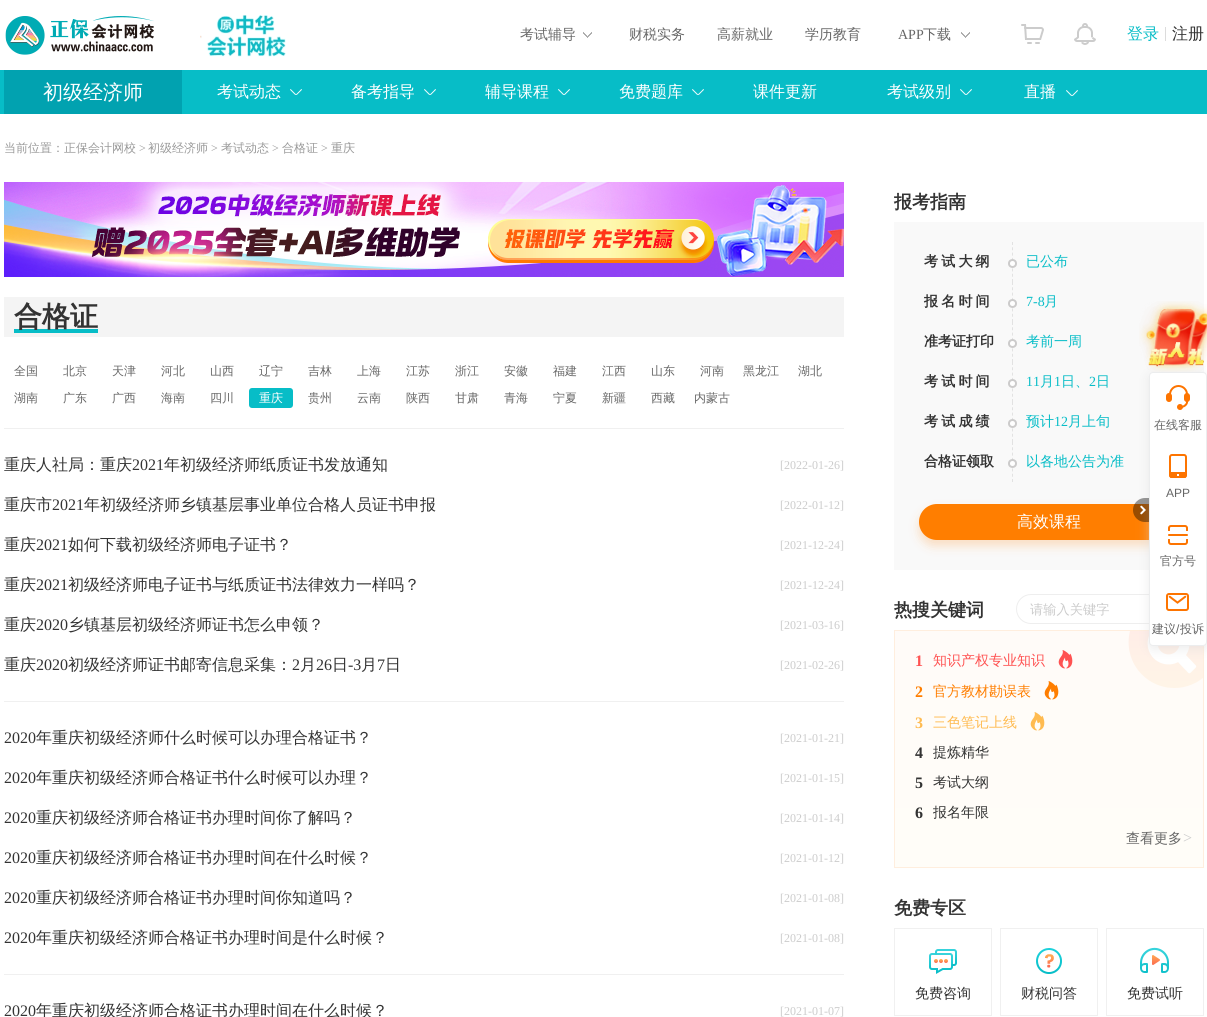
#include <cairo/cairo.h>
#include <math.h>
#include <stddef.h>


static void draw_spaced(cairo_t *cr, double x, double y, const char *s, double letter, double word) {
  cairo_move_to(cr, x, y);
  while (*s) {
    char ch[5] = {0};
    int n = 0;
    do ch[n++] = *s++; while ((*s & 0xC0) == 0x80);
    cairo_show_text(cr, ch);
    cairo_rel_move_to(cr, letter + word * (*ch == ' '), 0);
  }
}

static void rounded_rect(cairo_t *cr, double x, double y, double w, double h, double r) {
  cairo_new_sub_path(cr);
  cairo_arc(cr, x + w - r, y + h - r, r, 0, M_PI / 2);
  cairo_arc(cr, x + r, y + h - r, r, M_PI / 2, M_PI);
  cairo_arc(cr, x + r, y + r, r, M_PI, 1.5 * M_PI);
  cairo_arc(cr, x + w - r, y + r, r, 1.5 * M_PI, 2 * M_PI);
  cairo_close_path(cr);
}

static void draw_shadow(cairo_t *cr, double x, double y, double w, double h, double r, double blur, double alpha) {
  cairo_push_group_with_content(cr, CAIRO_CONTENT_ALPHA);
  cairo_set_operator(cr, CAIRO_OPERATOR_SOURCE);
  for (int i = 15; i >= -15 && fmin(w, h) + blur * i / 3 > 0; i -= 2) {
    double e = blur * i / 6;
    cairo_set_source_rgba(cr, 0, 0, 0, alpha * erfc((i - 1) / 8.5) / 2);
    rounded_rect(cr, x - e, y - e, w + 2 * e, h + 2 * e, fmax(0, fmin(r + e + blur * .6, fmin(w, h) / 2 + e)));
    cairo_fill(cr);
  }
  cairo_pattern_t *soft = cairo_pop_group(cr);
  cairo_mask(cr, soft);
  cairo_pattern_destroy(soft);
}

static void draw_image(cairo_t *cr, const char *path, double x, double y, double w, double h) {
  cairo_surface_t *image = cairo_image_surface_create_from_png(path);
  cairo_save(cr);
  cairo_set_source_surface(cr, image, x, y);
  cairo_rectangle(cr, x, y, w, h);
  cairo_fill(cr);
  cairo_restore(cr);
  cairo_surface_destroy(image);
}

static void draw(cairo_t *cr) {
  cairo_pattern_t *gradient;
  cairo_set_source_rgb(cr, 1, 1, 1);
  cairo_paint(cr);
  draw_image(cr, "images/1.png", 5, 16, 149, 39);
  draw_image(cr, "images/2.png", 200, 15, 86, 42);
  draw_image(cr, "images/3.png", 583, 32, 9, 6);
  draw_image(cr, "images/3.png", 961, 32, 9, 6);
  draw_image(cr, "images/4.png", 1021, 24, 23, 20);
  draw_image(cr, "images/5.png", 1074, 23, 22, 22);
  cairo_set_source_rgb(cr, 220 / 255.0, 220 / 255.0, 220 / 255.0);
  cairo_rectangle(cr, 1165, 27, 1, 14);
  cairo_fill(cr);
  cairo_set_source_rgb(cr, 7 / 255.0, 189 / 255.0, 199 / 255.0);
  cairo_rectangle(cr, 0, 70, 1207, 44);
  cairo_fill(cr);
  cairo_set_source_rgb(cr, 1 / 255.0, 162 / 255.0, 176 / 255.0);
  cairo_rectangle(cr, 4, 70, 178, 44);
  cairo_fill(cr);
  draw_image(cr, "images/6.png", 290, 89, 12, 6);
  draw_image(cr, "images/6.png", 424, 89, 12, 6);
  draw_image(cr, "images/6.png", 558, 89, 12, 6);
  draw_image(cr, "images/6.png", 692, 89, 12, 6);
  draw_image(cr, "images/6.png", 960, 89, 12, 6);
  draw_image(cr, "images/6.png", 1066, 90, 12, 6);
  draw_image(cr, "images/7.png", 4, 182, 840, 95);
  cairo_set_source_rgb(cr, 244 / 255.0, 244 / 255.0, 244 / 255.0);
  cairo_rectangle(cr, 4, 297, 840, 40);
  cairo_fill(cr);
  cairo_set_source_rgb(cr, 7 / 255.0, 189 / 255.0, 199 / 255.0);
  cairo_rectangle(cr, 14, 329, 84, 4);
  cairo_fill(cr);
  cairo_set_source_rgb(cr, 240 / 255.0, 240 / 255.0, 240 / 255.0);
  cairo_rectangle(cr, 4, 428, 840, 1);
  cairo_fill(cr);
  cairo_set_source_rgb(cr, 7 / 255.0, 189 / 255.0, 199 / 255.0);
  rounded_rect(cr, 249, 388, 44, 20, 3);
  cairo_fill(cr);
  cairo_set_source_rgb(cr, 240 / 255.0, 240 / 255.0, 240 / 255.0);
  cairo_rectangle(cr, 4, 701, 840, 1);
  cairo_fill(cr);
  cairo_rectangle(cr, 4, 974, 840, 1);
  cairo_fill(cr);
  cairo_set_source_rgb(cr, 249 / 255.0, 249 / 255.0, 249 / 255.0);
  cairo_rectangle(cr, 894, 222, 310, 348);
  cairo_fill(cr);
  cairo_new_path(cr);
  cairo_move_to(cr, 1012.5, 242);
  cairo_line_to(cr, 1012.5, 282);
  cairo_set_source_rgb(cr, 226 / 255.0, 226 / 255.0, 226 / 255.0);
  cairo_set_line_width(cr, 1);
  cairo_set_dash(cr, (double[]){3, 2.29}, 2, 0);
  cairo_stroke(cr);
  cairo_set_source_rgb(cr, 1, 1, 1);
  cairo_arc(cr, 1012.5, 263.5, 3.5, 0, 2 * M_PI);
  cairo_fill_preserve(cr);
  cairo_set_source_rgb(cr, 204 / 255.0, 203 / 255.0, 203 / 255.0);
  cairo_set_line_width(cr, 2);
  cairo_set_dash(cr, NULL, 0, 0);
  cairo_stroke(cr);
  cairo_new_path(cr);
  cairo_move_to(cr, 1012.5, 282);
  cairo_line_to(cr, 1012.5, 322);
  cairo_set_source_rgb(cr, 226 / 255.0, 226 / 255.0, 226 / 255.0);
  cairo_set_line_width(cr, 1);
  cairo_set_dash(cr, (double[]){3, 2.29}, 2, 0);
  cairo_stroke(cr);
  cairo_set_source_rgb(cr, 1, 1, 1);
  cairo_arc(cr, 1012.5, 303.5, 3.5, 0, 2 * M_PI);
  cairo_fill_preserve(cr);
  cairo_set_source_rgb(cr, 204 / 255.0, 203 / 255.0, 203 / 255.0);
  cairo_set_line_width(cr, 2);
  cairo_set_dash(cr, NULL, 0, 0);
  cairo_stroke(cr);
  cairo_new_path(cr);
  cairo_move_to(cr, 1012.5, 322);
  cairo_line_to(cr, 1012.5, 362);
  cairo_set_source_rgb(cr, 226 / 255.0, 226 / 255.0, 226 / 255.0);
  cairo_set_line_width(cr, 1);
  cairo_set_dash(cr, (double[]){3, 2.29}, 2, 0);
  cairo_stroke(cr);
  cairo_set_source_rgb(cr, 1, 1, 1);
  cairo_arc(cr, 1012.5, 343.5, 3.5, 0, 2 * M_PI);
  cairo_fill_preserve(cr);
  cairo_set_source_rgb(cr, 204 / 255.0, 203 / 255.0, 203 / 255.0);
  cairo_set_line_width(cr, 2);
  cairo_set_dash(cr, NULL, 0, 0);
  cairo_stroke(cr);
  cairo_new_path(cr);
  cairo_move_to(cr, 1012.5, 362);
  cairo_line_to(cr, 1012.5, 402);
  cairo_set_source_rgb(cr, 226 / 255.0, 226 / 255.0, 226 / 255.0);
  cairo_set_line_width(cr, 1);
  cairo_set_dash(cr, (double[]){3, 2.29}, 2, 0);
  cairo_stroke(cr);
  cairo_set_source_rgb(cr, 1, 1, 1);
  cairo_arc(cr, 1012.5, 383.5, 3.5, 0, 2 * M_PI);
  cairo_fill_preserve(cr);
  cairo_set_source_rgb(cr, 204 / 255.0, 203 / 255.0, 203 / 255.0);
  cairo_set_line_width(cr, 2);
  cairo_set_dash(cr, NULL, 0, 0);
  cairo_stroke(cr);
  cairo_new_path(cr);
  cairo_move_to(cr, 1012.5, 402);
  cairo_line_to(cr, 1012.5, 442);
  cairo_set_source_rgb(cr, 226 / 255.0, 226 / 255.0, 226 / 255.0);
  cairo_set_line_width(cr, 1);
  cairo_set_dash(cr, (double[]){3, 2.29}, 2, 0);
  cairo_stroke(cr);
  cairo_set_source_rgb(cr, 1, 1, 1);
  cairo_arc(cr, 1012.5, 423.5, 3.5, 0, 2 * M_PI);
  cairo_fill_preserve(cr);
  cairo_set_source_rgb(cr, 204 / 255.0, 203 / 255.0, 203 / 255.0);
  cairo_set_line_width(cr, 2);
  cairo_set_dash(cr, NULL, 0, 0);
  cairo_stroke(cr);
  cairo_new_path(cr);
  cairo_move_to(cr, 1012.5, 442);
  cairo_line_to(cr, 1012.5, 482);
  cairo_set_source_rgb(cr, 226 / 255.0, 226 / 255.0, 226 / 255.0);
  cairo_set_line_width(cr, 1);
  cairo_set_dash(cr, (double[]){3, 2.29}, 2, 0);
  cairo_stroke(cr);
  cairo_set_source_rgb(cr, 1, 1, 1);
  cairo_arc(cr, 1012.5, 463.5, 3.5, 0, 2 * M_PI);
  cairo_fill_preserve(cr);
  cairo_set_source_rgb(cr, 204 / 255.0, 203 / 255.0, 203 / 255.0);
  cairo_set_line_width(cr, 2);
  cairo_set_dash(cr, NULL, 0, 0);
  cairo_stroke(cr);
  cairo_set_source_rgb(cr, 250 / 255.0, 222 / 255.0, 195 / 255.0);
  draw_shadow(cr, 919, 510, 260, 36, 18, 5, 1);
  cairo_set_source_rgb(cr, 1, 126 / 255.0, 0);
  rounded_rect(cr, 919, 504, 260, 36, 18);
  cairo_fill(cr);
  rounded_rect(cr, 1016.5, 594.5, 187, 29, 14.5);
  cairo_set_source_rgb(cr, 238 / 255.0, 238 / 255.0, 238 / 255.0);
  cairo_set_line_width(cr, 1);
  cairo_stroke(cr);
  gradient = cairo_pattern_create_linear(1049, 631, 1049, 867);
  cairo_pattern_add_color_stop_rgba(gradient, 0, 1, 251 / 255.0, 248 / 255.0, 1);
  cairo_pattern_add_color_stop_rgba(gradient, 1, 1, 253 / 255.0, 248 / 255.0, 1);
  cairo_set_source(cr, gradient);
  cairo_pattern_destroy(gradient);
  cairo_rectangle(cr, 895, 631, 308, 236);
  cairo_fill(cr);
  cairo_rectangle(cr, 894.5, 630.5, 309, 237);
  cairo_set_source_rgb(cr, 1, 238 / 255.0, 222 / 255.0);
  cairo_stroke(cr);
  draw_image(cr, "images/8.png", 1058, 650, 15, 19);
  draw_image(cr, "images/9.png", 1044, 681, 15, 19);
  draw_image(cr, "images/10.png", 1030, 712, 15, 19);
  draw_image(cr, "images/11.png", 1128, 631, 75, 57);
  cairo_rectangle(cr, 894.5, 928.5, 97, 87);
  cairo_set_source_rgb(cr, 240 / 255.0, 240 / 255.0, 240 / 255.0);
  cairo_stroke(cr);
  draw_image(cr, "images/12.png", 929, 949, 28, 25);
  cairo_rectangle(cr, 1000.5, 928.5, 97, 87);
  cairo_stroke(cr);
  draw_image(cr, "images/13.png", 1036, 948, 26, 26);
  cairo_rectangle(cr, 1106.5, 928.5, 97, 87);
  cairo_stroke(cr);
  draw_image(cr, "images/14.png", 1140, 947, 29, 26);
  draw_image(cr, "images/15.png", 1139, 301, 68, 71);
  draw_image(cr, "images/16.png", 1148, 342, 56, 25);
  cairo_set_source_rgb(cr, 217 / 255.0, 217 / 255.0, 217 / 255.0);
  draw_shadow(cr, 1149, 375, 58, 274, 4, 5.5, 0.5);
  draw_image(cr, "images/17.png", 1133, 498, 16, 24);
  cairo_set_source_rgb(cr, 1, 1, 1);
  rounded_rect(cr, 1149.5, 372.5, 57, 273, 3.5);
  cairo_fill_preserve(cr);
  cairo_set_source_rgb(cr, 236 / 255.0, 237 / 255.0, 238 / 255.0);
  cairo_stroke(cr);
  draw_image(cr, "images/18.png", 1166, 385, 24, 25);
  draw_image(cr, "images/19.png", 1169, 454, 18, 24);
  draw_image(cr, "images/20.png", 1168, 525, 20, 20);
  draw_image(cr, "images/21.png", 1166, 593, 23, 18);
  cairo_select_font_face(cr, "WenQuanYi Zen Hei Medium", CAIRO_FONT_SLANT_NORMAL, CAIRO_FONT_WEIGHT_NORMAL);
  cairo_set_font_size(cr, 14);
  cairo_set_source_rgb(cr, 102 / 255.0, 102 / 255.0, 102 / 255.0);
  cairo_move_to(cr, 520, 39);
  cairo_show_text(cr, "考试辅导");
  cairo_move_to(cr, 629, 39);
  cairo_show_text(cr, "财税实务");
  cairo_move_to(cr, 717, 39);
  cairo_show_text(cr, "高薪就业");
  cairo_move_to(cr, 805, 39);
  cairo_show_text(cr, "学历教育");
  cairo_select_font_face(cr, "Liberation Serif", CAIRO_FONT_SLANT_NORMAL, CAIRO_FONT_WEIGHT_NORMAL);
  cairo_move_to(cr, 898, 39);
  cairo_show_text(cr, "APP");
  cairo_select_font_face(cr, "WenQuanYi Zen Hei Medium", CAIRO_FONT_SLANT_NORMAL, CAIRO_FONT_WEIGHT_NORMAL);
  cairo_move_to(cr, 923, 39);
  cairo_show_text(cr, "下载");
  cairo_set_font_size(cr, 16);
  cairo_set_source_rgb(cr, 7 / 255.0, 189 / 255.0, 199 / 255.0);
  cairo_move_to(cr, 1127, 39);
  cairo_show_text(cr, "登录");
  cairo_set_source_rgb(cr, 51 / 255.0, 51 / 255.0, 51 / 255.0);
  cairo_move_to(cr, 1172, 39);
  cairo_show_text(cr, "注册");
  cairo_set_font_size(cr, 20);
  cairo_set_source_rgb(cr, 1, 1, 1);
  cairo_move_to(cr, 43, 99);
  cairo_show_text(cr, "初级经济师");
  cairo_set_font_size(cr, 16);
  cairo_move_to(cr, 217, 97);
  cairo_show_text(cr, "考试动态");
  cairo_move_to(cr, 351, 97);
  cairo_show_text(cr, "备考指导");
  cairo_move_to(cr, 485, 97);
  cairo_show_text(cr, "辅导课程");
  cairo_move_to(cr, 619, 97);
  cairo_show_text(cr, "免费题库");
  cairo_move_to(cr, 753, 97);
  cairo_show_text(cr, "课件更新");
  cairo_move_to(cr, 887, 97);
  cairo_show_text(cr, "考试级别");
  cairo_move_to(cr, 1024, 97);
  cairo_show_text(cr, "直播");
  cairo_set_font_size(cr, 12);
  cairo_set_source_rgb(cr, 153 / 255.0, 153 / 255.0, 153 / 255.0);
  cairo_move_to(cr, 4, 152);
  cairo_show_text(cr, "当前位置：正保会计网校");
  cairo_select_font_face(cr, "Liberation Serif", CAIRO_FONT_SLANT_NORMAL, CAIRO_FONT_WEIGHT_NORMAL);
  cairo_move_to(cr, 139, 152);
  cairo_show_text(cr, ">");
  cairo_select_font_face(cr, "WenQuanYi Zen Hei Medium", CAIRO_FONT_SLANT_NORMAL, CAIRO_FONT_WEIGHT_NORMAL);
  cairo_move_to(cr, 148, 152);
  cairo_show_text(cr, "初级经济师");
  cairo_select_font_face(cr, "Liberation Serif", CAIRO_FONT_SLANT_NORMAL, CAIRO_FONT_WEIGHT_NORMAL);
  cairo_move_to(cr, 211, 152);
  cairo_show_text(cr, ">");
  cairo_select_font_face(cr, "WenQuanYi Zen Hei Medium", CAIRO_FONT_SLANT_NORMAL, CAIRO_FONT_WEIGHT_NORMAL);
  cairo_move_to(cr, 221, 152);
  cairo_show_text(cr, "考试动态");
  cairo_select_font_face(cr, "Liberation Serif", CAIRO_FONT_SLANT_NORMAL, CAIRO_FONT_WEIGHT_NORMAL);
  cairo_move_to(cr, 272, 152);
  cairo_show_text(cr, ">");
  cairo_select_font_face(cr, "WenQuanYi Zen Hei Medium", CAIRO_FONT_SLANT_NORMAL, CAIRO_FONT_WEIGHT_NORMAL);
  cairo_move_to(cr, 282, 152);
  cairo_show_text(cr, "合格证");
  cairo_select_font_face(cr, "Liberation Serif", CAIRO_FONT_SLANT_NORMAL, CAIRO_FONT_WEIGHT_NORMAL);
  cairo_move_to(cr, 321, 152);
  cairo_show_text(cr, ">");
  cairo_select_font_face(cr, "WenQuanYi Zen Hei Medium", CAIRO_FONT_SLANT_NORMAL, CAIRO_FONT_WEIGHT_NORMAL);
  cairo_move_to(cr, 331, 152);
  cairo_show_text(cr, "重庆");
  cairo_select_font_face(cr, "WenQuanYi Zen Hei", CAIRO_FONT_SLANT_NORMAL, CAIRO_FONT_WEIGHT_BOLD);
  cairo_set_font_size(cr, 28);
  cairo_set_source_rgb(cr, 51 / 255.0, 51 / 255.0, 51 / 255.0);
  cairo_move_to(cr, 14, 326);
  cairo_show_text(cr, "合格证");
  cairo_select_font_face(cr, "WenQuanYi Zen Hei Medium", CAIRO_FONT_SLANT_NORMAL, CAIRO_FONT_WEIGHT_NORMAL);
  cairo_set_font_size(cr, 12);
  cairo_set_source_rgb(cr, 102 / 255.0, 102 / 255.0, 102 / 255.0);
  cairo_move_to(cr, 14, 375);
  cairo_show_text(cr, "全国");
  cairo_move_to(cr, 63, 375);
  cairo_show_text(cr, "北京");
  cairo_move_to(cr, 112, 375);
  cairo_show_text(cr, "天津");
  cairo_move_to(cr, 161, 375);
  cairo_show_text(cr, "河北");
  cairo_move_to(cr, 210, 375);
  cairo_show_text(cr, "山西");
  cairo_move_to(cr, 259, 375);
  cairo_show_text(cr, "辽宁");
  cairo_move_to(cr, 308, 375);
  cairo_show_text(cr, "吉林");
  cairo_move_to(cr, 357, 375);
  cairo_show_text(cr, "上海");
  cairo_move_to(cr, 406, 375);
  cairo_show_text(cr, "江苏");
  cairo_move_to(cr, 455, 375);
  cairo_show_text(cr, "浙江");
  cairo_move_to(cr, 504, 375);
  cairo_show_text(cr, "安徽");
  cairo_move_to(cr, 553, 375);
  cairo_show_text(cr, "福建");
  cairo_move_to(cr, 602, 375);
  cairo_show_text(cr, "江西");
  cairo_move_to(cr, 651, 375);
  cairo_show_text(cr, "山东");
  cairo_move_to(cr, 700, 375);
  cairo_show_text(cr, "河南");
  cairo_move_to(cr, 743, 375);
  cairo_show_text(cr, "黑龙江");
  cairo_move_to(cr, 798, 375);
  cairo_show_text(cr, "湖北");
  cairo_move_to(cr, 14, 402);
  cairo_show_text(cr, "湖南");
  cairo_move_to(cr, 63, 402);
  cairo_show_text(cr, "广东");
  cairo_move_to(cr, 112, 402);
  cairo_show_text(cr, "广西");
  cairo_move_to(cr, 161, 402);
  cairo_show_text(cr, "海南");
  cairo_move_to(cr, 210, 402);
  cairo_show_text(cr, "四川");
  cairo_set_source_rgb(cr, 1, 1, 1);
  cairo_move_to(cr, 259, 402);
  cairo_show_text(cr, "重庆");
  cairo_set_source_rgb(cr, 102 / 255.0, 102 / 255.0, 102 / 255.0);
  cairo_move_to(cr, 308, 402);
  cairo_show_text(cr, "贵州");
  cairo_move_to(cr, 357, 402);
  cairo_show_text(cr, "云南");
  cairo_move_to(cr, 406, 402);
  cairo_show_text(cr, "陕西");
  cairo_move_to(cr, 455, 402);
  cairo_show_text(cr, "甘肃");
  cairo_move_to(cr, 504, 402);
  cairo_show_text(cr, "青海");
  cairo_move_to(cr, 553, 402);
  cairo_show_text(cr, "宁夏");
  cairo_move_to(cr, 602, 402);
  cairo_show_text(cr, "新疆");
  cairo_move_to(cr, 651, 402);
  cairo_show_text(cr, "西藏");
  cairo_move_to(cr, 694, 402);
  cairo_show_text(cr, "内蒙古");
  cairo_set_font_size(cr, 16);
  cairo_set_source_rgb(cr, 51 / 255.0, 51 / 255.0, 51 / 255.0);
  cairo_move_to(cr, 4, 470);
  cairo_show_text(cr, "重庆人社局：重庆");
  cairo_select_font_face(cr, "Liberation Serif", CAIRO_FONT_SLANT_NORMAL, CAIRO_FONT_WEIGHT_NORMAL);
  cairo_move_to(cr, 132, 470);
  cairo_show_text(cr, "2021");
  cairo_select_font_face(cr, "WenQuanYi Zen Hei Medium", CAIRO_FONT_SLANT_NORMAL, CAIRO_FONT_WEIGHT_NORMAL);
  cairo_move_to(cr, 164, 470);
  cairo_show_text(cr, "年初级经济师纸质证书发放通知");
  cairo_select_font_face(cr, "Liberation Serif", CAIRO_FONT_SLANT_NORMAL, CAIRO_FONT_WEIGHT_NORMAL);
  cairo_set_font_size(cr, 12);
  cairo_set_source_rgb(cr, 204 / 255.0, 204 / 255.0, 204 / 255.0);
  cairo_move_to(cr, 780, 469);
  cairo_show_text(cr, "[2022-01-26]");
  cairo_select_font_face(cr, "WenQuanYi Zen Hei Medium", CAIRO_FONT_SLANT_NORMAL, CAIRO_FONT_WEIGHT_NORMAL);
  cairo_set_font_size(cr, 16);
  cairo_set_source_rgb(cr, 51 / 255.0, 51 / 255.0, 51 / 255.0);
  cairo_move_to(cr, 4, 510);
  cairo_show_text(cr, "重庆市");
  cairo_select_font_face(cr, "Liberation Serif", CAIRO_FONT_SLANT_NORMAL, CAIRO_FONT_WEIGHT_NORMAL);
  cairo_move_to(cr, 52, 510);
  cairo_show_text(cr, "2021");
  cairo_select_font_face(cr, "WenQuanYi Zen Hei Medium", CAIRO_FONT_SLANT_NORMAL, CAIRO_FONT_WEIGHT_NORMAL);
  cairo_move_to(cr, 84, 510);
  cairo_show_text(cr, "年初级经济师乡镇基层事业单位合格人员证书申报");
  cairo_select_font_face(cr, "Liberation Serif", CAIRO_FONT_SLANT_NORMAL, CAIRO_FONT_WEIGHT_NORMAL);
  cairo_set_font_size(cr, 12);
  cairo_set_source_rgb(cr, 204 / 255.0, 204 / 255.0, 204 / 255.0);
  cairo_move_to(cr, 780, 509);
  cairo_show_text(cr, "[2022-01-12]");
  cairo_select_font_face(cr, "WenQuanYi Zen Hei Medium", CAIRO_FONT_SLANT_NORMAL, CAIRO_FONT_WEIGHT_NORMAL);
  cairo_set_font_size(cr, 16);
  cairo_set_source_rgb(cr, 51 / 255.0, 51 / 255.0, 51 / 255.0);
  cairo_move_to(cr, 4, 550);
  cairo_show_text(cr, "重庆");
  cairo_select_font_face(cr, "Liberation Serif", CAIRO_FONT_SLANT_NORMAL, CAIRO_FONT_WEIGHT_NORMAL);
  cairo_move_to(cr, 36, 550);
  cairo_show_text(cr, "2021");
  cairo_select_font_face(cr, "WenQuanYi Zen Hei Medium", CAIRO_FONT_SLANT_NORMAL, CAIRO_FONT_WEIGHT_NORMAL);
  cairo_move_to(cr, 68, 550);
  cairo_show_text(cr, "如何下载初级经济师电子证书？");
  cairo_select_font_face(cr, "Liberation Serif", CAIRO_FONT_SLANT_NORMAL, CAIRO_FONT_WEIGHT_NORMAL);
  cairo_set_font_size(cr, 12);
  cairo_set_source_rgb(cr, 204 / 255.0, 204 / 255.0, 204 / 255.0);
  cairo_move_to(cr, 780, 549);
  cairo_show_text(cr, "[2021-12-24]");
  cairo_select_font_face(cr, "WenQuanYi Zen Hei Medium", CAIRO_FONT_SLANT_NORMAL, CAIRO_FONT_WEIGHT_NORMAL);
  cairo_set_font_size(cr, 16);
  cairo_set_source_rgb(cr, 51 / 255.0, 51 / 255.0, 51 / 255.0);
  cairo_move_to(cr, 4, 590);
  cairo_show_text(cr, "重庆");
  cairo_select_font_face(cr, "Liberation Serif", CAIRO_FONT_SLANT_NORMAL, CAIRO_FONT_WEIGHT_NORMAL);
  cairo_move_to(cr, 36, 590);
  cairo_show_text(cr, "2021");
  cairo_select_font_face(cr, "WenQuanYi Zen Hei Medium", CAIRO_FONT_SLANT_NORMAL, CAIRO_FONT_WEIGHT_NORMAL);
  cairo_move_to(cr, 68, 590);
  cairo_show_text(cr, "初级经济师电子证书与纸质证书法律效力一样吗？");
  cairo_select_font_face(cr, "Liberation Serif", CAIRO_FONT_SLANT_NORMAL, CAIRO_FONT_WEIGHT_NORMAL);
  cairo_set_font_size(cr, 12);
  cairo_set_source_rgb(cr, 204 / 255.0, 204 / 255.0, 204 / 255.0);
  cairo_move_to(cr, 780, 589);
  cairo_show_text(cr, "[2021-12-24]");
  cairo_select_font_face(cr, "WenQuanYi Zen Hei Medium", CAIRO_FONT_SLANT_NORMAL, CAIRO_FONT_WEIGHT_NORMAL);
  cairo_set_font_size(cr, 16);
  cairo_set_source_rgb(cr, 51 / 255.0, 51 / 255.0, 51 / 255.0);
  cairo_move_to(cr, 4, 630);
  cairo_show_text(cr, "重庆");
  cairo_select_font_face(cr, "Liberation Serif", CAIRO_FONT_SLANT_NORMAL, CAIRO_FONT_WEIGHT_NORMAL);
  cairo_move_to(cr, 36, 630);
  cairo_show_text(cr, "2020");
  cairo_select_font_face(cr, "WenQuanYi Zen Hei Medium", CAIRO_FONT_SLANT_NORMAL, CAIRO_FONT_WEIGHT_NORMAL);
  cairo_move_to(cr, 68, 630);
  cairo_show_text(cr, "乡镇基层初级经济师证书怎么申领？");
  cairo_select_font_face(cr, "Liberation Serif", CAIRO_FONT_SLANT_NORMAL, CAIRO_FONT_WEIGHT_NORMAL);
  cairo_set_font_size(cr, 12);
  cairo_set_source_rgb(cr, 204 / 255.0, 204 / 255.0, 204 / 255.0);
  cairo_move_to(cr, 780, 629);
  cairo_show_text(cr, "[2021-03-16]");
  cairo_select_font_face(cr, "WenQuanYi Zen Hei Medium", CAIRO_FONT_SLANT_NORMAL, CAIRO_FONT_WEIGHT_NORMAL);
  cairo_set_font_size(cr, 16);
  cairo_set_source_rgb(cr, 51 / 255.0, 51 / 255.0, 51 / 255.0);
  cairo_move_to(cr, 4, 670);
  cairo_show_text(cr, "重庆");
  cairo_select_font_face(cr, "Liberation Serif", CAIRO_FONT_SLANT_NORMAL, CAIRO_FONT_WEIGHT_NORMAL);
  cairo_move_to(cr, 36, 670);
  cairo_show_text(cr, "2020");
  cairo_select_font_face(cr, "WenQuanYi Zen Hei Medium", CAIRO_FONT_SLANT_NORMAL, CAIRO_FONT_WEIGHT_NORMAL);
  cairo_move_to(cr, 68, 670);
  cairo_show_text(cr, "初级经济师证书邮寄信息采集：");
  cairo_select_font_face(cr, "Liberation Serif", CAIRO_FONT_SLANT_NORMAL, CAIRO_FONT_WEIGHT_NORMAL);
  cairo_move_to(cr, 292, 670);
  cairo_show_text(cr, "2");
  cairo_select_font_face(cr, "WenQuanYi Zen Hei Medium", CAIRO_FONT_SLANT_NORMAL, CAIRO_FONT_WEIGHT_NORMAL);
  cairo_move_to(cr, 300, 670);
  cairo_show_text(cr, "月");
  cairo_select_font_face(cr, "Liberation Serif", CAIRO_FONT_SLANT_NORMAL, CAIRO_FONT_WEIGHT_NORMAL);
  cairo_move_to(cr, 316, 670);
  cairo_show_text(cr, "26");
  cairo_select_font_face(cr, "WenQuanYi Zen Hei Medium", CAIRO_FONT_SLANT_NORMAL, CAIRO_FONT_WEIGHT_NORMAL);
  cairo_move_to(cr, 332, 670);
  cairo_show_text(cr, "日");
  cairo_select_font_face(cr, "Liberation Serif", CAIRO_FONT_SLANT_NORMAL, CAIRO_FONT_WEIGHT_NORMAL);
  cairo_move_to(cr, 348, 670);
  cairo_show_text(cr, "-3");
  cairo_select_font_face(cr, "WenQuanYi Zen Hei Medium", CAIRO_FONT_SLANT_NORMAL, CAIRO_FONT_WEIGHT_NORMAL);
  cairo_move_to(cr, 361, 670);
  cairo_show_text(cr, "月");
  cairo_select_font_face(cr, "Liberation Serif", CAIRO_FONT_SLANT_NORMAL, CAIRO_FONT_WEIGHT_NORMAL);
  cairo_move_to(cr, 377, 670);
  cairo_show_text(cr, "7");
  cairo_select_font_face(cr, "WenQuanYi Zen Hei Medium", CAIRO_FONT_SLANT_NORMAL, CAIRO_FONT_WEIGHT_NORMAL);
  cairo_move_to(cr, 385, 670);
  cairo_show_text(cr, "日");
  cairo_select_font_face(cr, "Liberation Serif", CAIRO_FONT_SLANT_NORMAL, CAIRO_FONT_WEIGHT_NORMAL);
  cairo_set_font_size(cr, 12);
  cairo_set_source_rgb(cr, 204 / 255.0, 204 / 255.0, 204 / 255.0);
  cairo_move_to(cr, 780, 669);
  cairo_show_text(cr, "[2021-02-26]");
  cairo_set_font_size(cr, 16);
  cairo_set_source_rgb(cr, 51 / 255.0, 51 / 255.0, 51 / 255.0);
  cairo_move_to(cr, 4, 743);
  cairo_show_text(cr, "2020");
  cairo_select_font_face(cr, "WenQuanYi Zen Hei Medium", CAIRO_FONT_SLANT_NORMAL, CAIRO_FONT_WEIGHT_NORMAL);
  cairo_move_to(cr, 36, 743);
  cairo_show_text(cr, "年重庆初级经济师什么时候可以办理合格证书？");
  cairo_select_font_face(cr, "Liberation Serif", CAIRO_FONT_SLANT_NORMAL, CAIRO_FONT_WEIGHT_NORMAL);
  cairo_set_font_size(cr, 12);
  cairo_set_source_rgb(cr, 204 / 255.0, 204 / 255.0, 204 / 255.0);
  cairo_move_to(cr, 780, 742);
  cairo_show_text(cr, "[2021-01-21]");
  cairo_set_font_size(cr, 16);
  cairo_set_source_rgb(cr, 51 / 255.0, 51 / 255.0, 51 / 255.0);
  cairo_move_to(cr, 4, 783);
  cairo_show_text(cr, "2020");
  cairo_select_font_face(cr, "WenQuanYi Zen Hei Medium", CAIRO_FONT_SLANT_NORMAL, CAIRO_FONT_WEIGHT_NORMAL);
  cairo_move_to(cr, 36, 783);
  cairo_show_text(cr, "年重庆初级经济师合格证书什么时候可以办理？");
  cairo_select_font_face(cr, "Liberation Serif", CAIRO_FONT_SLANT_NORMAL, CAIRO_FONT_WEIGHT_NORMAL);
  cairo_set_font_size(cr, 12);
  cairo_set_source_rgb(cr, 204 / 255.0, 204 / 255.0, 204 / 255.0);
  cairo_move_to(cr, 780, 782);
  cairo_show_text(cr, "[2021-01-15]");
  cairo_set_font_size(cr, 16);
  cairo_set_source_rgb(cr, 51 / 255.0, 51 / 255.0, 51 / 255.0);
  cairo_move_to(cr, 4, 823);
  cairo_show_text(cr, "2020");
  cairo_select_font_face(cr, "WenQuanYi Zen Hei Medium", CAIRO_FONT_SLANT_NORMAL, CAIRO_FONT_WEIGHT_NORMAL);
  cairo_move_to(cr, 36, 823);
  cairo_show_text(cr, "重庆初级经济师合格证书办理时间你了解吗？");
  cairo_select_font_face(cr, "Liberation Serif", CAIRO_FONT_SLANT_NORMAL, CAIRO_FONT_WEIGHT_NORMAL);
  cairo_set_font_size(cr, 12);
  cairo_set_source_rgb(cr, 204 / 255.0, 204 / 255.0, 204 / 255.0);
  cairo_move_to(cr, 780, 822);
  cairo_show_text(cr, "[2021-01-14]");
  cairo_set_font_size(cr, 16);
  cairo_set_source_rgb(cr, 51 / 255.0, 51 / 255.0, 51 / 255.0);
  cairo_move_to(cr, 4, 863);
  cairo_show_text(cr, "2020");
  cairo_select_font_face(cr, "WenQuanYi Zen Hei Medium", CAIRO_FONT_SLANT_NORMAL, CAIRO_FONT_WEIGHT_NORMAL);
  cairo_move_to(cr, 36, 863);
  cairo_show_text(cr, "重庆初级经济师合格证书办理时间在什么时候？");
  cairo_select_font_face(cr, "Liberation Serif", CAIRO_FONT_SLANT_NORMAL, CAIRO_FONT_WEIGHT_NORMAL);
  cairo_set_font_size(cr, 12);
  cairo_set_source_rgb(cr, 204 / 255.0, 204 / 255.0, 204 / 255.0);
  cairo_move_to(cr, 780, 862);
  cairo_show_text(cr, "[2021-01-12]");
  cairo_set_font_size(cr, 16);
  cairo_set_source_rgb(cr, 51 / 255.0, 51 / 255.0, 51 / 255.0);
  cairo_move_to(cr, 4, 903);
  cairo_show_text(cr, "2020");
  cairo_select_font_face(cr, "WenQuanYi Zen Hei Medium", CAIRO_FONT_SLANT_NORMAL, CAIRO_FONT_WEIGHT_NORMAL);
  cairo_move_to(cr, 36, 903);
  cairo_show_text(cr, "重庆初级经济师合格证书办理时间你知道吗？");
  cairo_select_font_face(cr, "Liberation Serif", CAIRO_FONT_SLANT_NORMAL, CAIRO_FONT_WEIGHT_NORMAL);
  cairo_set_font_size(cr, 12);
  cairo_set_source_rgb(cr, 204 / 255.0, 204 / 255.0, 204 / 255.0);
  cairo_move_to(cr, 780, 902);
  cairo_show_text(cr, "[2021-01-08]");
  cairo_set_font_size(cr, 16);
  cairo_set_source_rgb(cr, 51 / 255.0, 51 / 255.0, 51 / 255.0);
  cairo_move_to(cr, 4, 943);
  cairo_show_text(cr, "2020");
  cairo_select_font_face(cr, "WenQuanYi Zen Hei Medium", CAIRO_FONT_SLANT_NORMAL, CAIRO_FONT_WEIGHT_NORMAL);
  cairo_move_to(cr, 36, 943);
  cairo_show_text(cr, "年重庆初级经济师合格证书办理时间是什么时候？");
  cairo_select_font_face(cr, "Liberation Serif", CAIRO_FONT_SLANT_NORMAL, CAIRO_FONT_WEIGHT_NORMAL);
  cairo_set_font_size(cr, 12);
  cairo_set_source_rgb(cr, 204 / 255.0, 204 / 255.0, 204 / 255.0);
  cairo_move_to(cr, 780, 942);
  cairo_show_text(cr, "[2021-01-08]");
  cairo_set_font_size(cr, 16);
  cairo_set_source_rgb(cr, 51 / 255.0, 51 / 255.0, 51 / 255.0);
  cairo_move_to(cr, 4, 1016);
  cairo_show_text(cr, "2020");
  cairo_select_font_face(cr, "WenQuanYi Zen Hei Medium", CAIRO_FONT_SLANT_NORMAL, CAIRO_FONT_WEIGHT_NORMAL);
  cairo_move_to(cr, 36, 1016);
  cairo_show_text(cr, "年重庆初级经济师合格证书办理时间在什么时候？");
  cairo_select_font_face(cr, "Liberation Serif", CAIRO_FONT_SLANT_NORMAL, CAIRO_FONT_WEIGHT_NORMAL);
  cairo_set_font_size(cr, 12);
  cairo_set_source_rgb(cr, 204 / 255.0, 204 / 255.0, 204 / 255.0);
  cairo_move_to(cr, 780, 1015);
  cairo_show_text(cr, "[2021-01-07]");
  cairo_select_font_face(cr, "WenQuanYi Zen Hei", CAIRO_FONT_SLANT_NORMAL, CAIRO_FONT_WEIGHT_BOLD);
  cairo_set_font_size(cr, 18);
  cairo_set_source_rgb(cr, 51 / 255.0, 51 / 255.0, 51 / 255.0);
  cairo_move_to(cr, 894, 208);
  cairo_show_text(cr, "报考指南");
  cairo_set_font_size(cr, 14);
  draw_spaced(cr, 924, 266, "考 试 大 纲", 0, -1);
  cairo_select_font_face(cr, "WenQuanYi Zen Hei Medium", CAIRO_FONT_SLANT_NORMAL, CAIRO_FONT_WEIGHT_NORMAL);
  cairo_set_source_rgb(cr, 7 / 255.0, 189 / 255.0, 199 / 255.0);
  cairo_move_to(cr, 1026, 266);
  cairo_show_text(cr, "已公布");
  cairo_select_font_face(cr, "WenQuanYi Zen Hei", CAIRO_FONT_SLANT_NORMAL, CAIRO_FONT_WEIGHT_BOLD);
  cairo_set_source_rgb(cr, 51 / 255.0, 51 / 255.0, 51 / 255.0);
  draw_spaced(cr, 924, 306, "报 名 时 间", 0, -1);
  cairo_select_font_face(cr, "Liberation Serif", CAIRO_FONT_SLANT_NORMAL, CAIRO_FONT_WEIGHT_NORMAL);
  cairo_set_source_rgb(cr, 7 / 255.0, 189 / 255.0, 199 / 255.0);
  cairo_move_to(cr, 1026, 306);
  cairo_show_text(cr, "7-8");
  cairo_select_font_face(cr, "WenQuanYi Zen Hei Medium", CAIRO_FONT_SLANT_NORMAL, CAIRO_FONT_WEIGHT_NORMAL);
  cairo_move_to(cr, 1044, 306);
  cairo_show_text(cr, "月");
  cairo_select_font_face(cr, "WenQuanYi Zen Hei", CAIRO_FONT_SLANT_NORMAL, CAIRO_FONT_WEIGHT_BOLD);
  cairo_set_source_rgb(cr, 51 / 255.0, 51 / 255.0, 51 / 255.0);
  cairo_move_to(cr, 924, 346);
  cairo_show_text(cr, "准考证打印");
  cairo_select_font_face(cr, "WenQuanYi Zen Hei Medium", CAIRO_FONT_SLANT_NORMAL, CAIRO_FONT_WEIGHT_NORMAL);
  cairo_set_source_rgb(cr, 7 / 255.0, 189 / 255.0, 199 / 255.0);
  cairo_move_to(cr, 1026, 346);
  cairo_show_text(cr, "考前一周");
  cairo_select_font_face(cr, "WenQuanYi Zen Hei", CAIRO_FONT_SLANT_NORMAL, CAIRO_FONT_WEIGHT_BOLD);
  cairo_set_source_rgb(cr, 51 / 255.0, 51 / 255.0, 51 / 255.0);
  draw_spaced(cr, 924, 386, "考 试 时 间", 0, -1);
  cairo_select_font_face(cr, "Liberation Serif", CAIRO_FONT_SLANT_NORMAL, CAIRO_FONT_WEIGHT_NORMAL);
  cairo_set_source_rgb(cr, 7 / 255.0, 189 / 255.0, 199 / 255.0);
  cairo_move_to(cr, 1026, 386);
  cairo_show_text(cr, "11");
  cairo_select_font_face(cr, "WenQuanYi Zen Hei Medium", CAIRO_FONT_SLANT_NORMAL, CAIRO_FONT_WEIGHT_NORMAL);
  cairo_move_to(cr, 1040, 386);
  cairo_show_text(cr, "月");
  cairo_select_font_face(cr, "Liberation Serif", CAIRO_FONT_SLANT_NORMAL, CAIRO_FONT_WEIGHT_NORMAL);
  cairo_move_to(cr, 1054, 386);
  cairo_show_text(cr, "1");
  cairo_select_font_face(cr, "WenQuanYi Zen Hei Medium", CAIRO_FONT_SLANT_NORMAL, CAIRO_FONT_WEIGHT_NORMAL);
  cairo_move_to(cr, 1061, 386);
  cairo_show_text(cr, "日、");
  cairo_select_font_face(cr, "Liberation Serif", CAIRO_FONT_SLANT_NORMAL, CAIRO_FONT_WEIGHT_NORMAL);
  cairo_move_to(cr, 1089, 386);
  cairo_show_text(cr, "2");
  cairo_select_font_face(cr, "WenQuanYi Zen Hei Medium", CAIRO_FONT_SLANT_NORMAL, CAIRO_FONT_WEIGHT_NORMAL);
  cairo_move_to(cr, 1096, 386);
  cairo_show_text(cr, "日");
  cairo_select_font_face(cr, "WenQuanYi Zen Hei", CAIRO_FONT_SLANT_NORMAL, CAIRO_FONT_WEIGHT_BOLD);
  cairo_set_source_rgb(cr, 51 / 255.0, 51 / 255.0, 51 / 255.0);
  draw_spaced(cr, 924, 426, "考 试 成 绩", 0, -1);
  cairo_select_font_face(cr, "WenQuanYi Zen Hei Medium", CAIRO_FONT_SLANT_NORMAL, CAIRO_FONT_WEIGHT_NORMAL);
  cairo_set_source_rgb(cr, 7 / 255.0, 189 / 255.0, 199 / 255.0);
  cairo_move_to(cr, 1026, 426);
  cairo_show_text(cr, "预计");
  cairo_select_font_face(cr, "Liberation Serif", CAIRO_FONT_SLANT_NORMAL, CAIRO_FONT_WEIGHT_NORMAL);
  cairo_move_to(cr, 1054, 426);
  cairo_show_text(cr, "12");
  cairo_select_font_face(cr, "WenQuanYi Zen Hei Medium", CAIRO_FONT_SLANT_NORMAL, CAIRO_FONT_WEIGHT_NORMAL);
  cairo_move_to(cr, 1068, 426);
  cairo_show_text(cr, "月上旬");
  cairo_select_font_face(cr, "WenQuanYi Zen Hei", CAIRO_FONT_SLANT_NORMAL, CAIRO_FONT_WEIGHT_BOLD);
  cairo_set_source_rgb(cr, 51 / 255.0, 51 / 255.0, 51 / 255.0);
  cairo_move_to(cr, 924, 466);
  cairo_show_text(cr, "合格证领取");
  cairo_select_font_face(cr, "WenQuanYi Zen Hei Medium", CAIRO_FONT_SLANT_NORMAL, CAIRO_FONT_WEIGHT_NORMAL);
  cairo_set_source_rgb(cr, 7 / 255.0, 189 / 255.0, 199 / 255.0);
  cairo_move_to(cr, 1026, 466);
  cairo_show_text(cr, "以各地公告为准");
  cairo_set_font_size(cr, 16);
  cairo_set_source_rgb(cr, 1, 1, 1);
  cairo_move_to(cr, 1017, 527);
  cairo_show_text(cr, "高效课程");
  cairo_select_font_face(cr, "WenQuanYi Zen Hei", CAIRO_FONT_SLANT_NORMAL, CAIRO_FONT_WEIGHT_BOLD);
  cairo_set_font_size(cr, 18);
  cairo_set_source_rgb(cr, 51 / 255.0, 51 / 255.0, 51 / 255.0);
  cairo_move_to(cr, 894, 616);
  cairo_show_text(cr, "热搜关键词");
  cairo_select_font_face(cr, "WenQuanYi Zen Hei Medium", CAIRO_FONT_SLANT_NORMAL, CAIRO_FONT_WEIGHT_NORMAL);
  cairo_set_font_size(cr, 13.25);
  cairo_set_source_rgb(cr, 204 / 255.0, 204 / 255.0, 204 / 255.0);
  cairo_move_to(cr, 1030, 614);
  cairo_show_text(cr, "请输入关键字");
  cairo_select_font_face(cr, "Liberation Serif", CAIRO_FONT_SLANT_NORMAL, CAIRO_FONT_WEIGHT_BOLD);
  cairo_set_font_size(cr, 16);
  cairo_set_source_rgb(cr, 1, 82 / 255.0, 82 / 255.0);
  cairo_move_to(cr, 915, 666);
  cairo_show_text(cr, "1");
  cairo_select_font_face(cr, "WenQuanYi Zen Hei Medium", CAIRO_FONT_SLANT_NORMAL, CAIRO_FONT_WEIGHT_NORMAL);
  cairo_set_font_size(cr, 14);
  cairo_move_to(cr, 933, 665);
  cairo_show_text(cr, "知识产权专业知识");
  cairo_select_font_face(cr, "Liberation Serif", CAIRO_FONT_SLANT_NORMAL, CAIRO_FONT_WEIGHT_BOLD);
  cairo_set_font_size(cr, 16);
  cairo_set_source_rgb(cr, 1, 126 / 255.0, 0);
  cairo_move_to(cr, 915, 697);
  cairo_show_text(cr, "2");
  cairo_select_font_face(cr, "WenQuanYi Zen Hei Medium", CAIRO_FONT_SLANT_NORMAL, CAIRO_FONT_WEIGHT_NORMAL);
  cairo_set_font_size(cr, 14);
  cairo_move_to(cr, 933, 696);
  cairo_show_text(cr, "官方教材勘误表");
  cairo_select_font_face(cr, "Liberation Serif", CAIRO_FONT_SLANT_NORMAL, CAIRO_FONT_WEIGHT_BOLD);
  cairo_set_font_size(cr, 16);
  cairo_set_source_rgb(cr, 1, 187 / 255.0, 81 / 255.0);
  cairo_move_to(cr, 915, 728);
  cairo_show_text(cr, "3");
  cairo_select_font_face(cr, "WenQuanYi Zen Hei Medium", CAIRO_FONT_SLANT_NORMAL, CAIRO_FONT_WEIGHT_NORMAL);
  cairo_set_font_size(cr, 14);
  cairo_move_to(cr, 933, 727);
  cairo_show_text(cr, "三色笔记上线");
  cairo_select_font_face(cr, "Liberation Serif", CAIRO_FONT_SLANT_NORMAL, CAIRO_FONT_WEIGHT_BOLD);
  cairo_set_font_size(cr, 16);
  cairo_set_source_rgb(cr, 51 / 255.0, 51 / 255.0, 51 / 255.0);
  cairo_move_to(cr, 915, 758);
  cairo_show_text(cr, "4");
  cairo_select_font_face(cr, "WenQuanYi Zen Hei Medium", CAIRO_FONT_SLANT_NORMAL, CAIRO_FONT_WEIGHT_NORMAL);
  cairo_set_font_size(cr, 14);
  cairo_move_to(cr, 933, 757);
  cairo_show_text(cr, "提炼精华");
  cairo_select_font_face(cr, "Liberation Serif", CAIRO_FONT_SLANT_NORMAL, CAIRO_FONT_WEIGHT_BOLD);
  cairo_set_font_size(cr, 16);
  cairo_move_to(cr, 915, 788);
  cairo_show_text(cr, "5");
  cairo_select_font_face(cr, "WenQuanYi Zen Hei Medium", CAIRO_FONT_SLANT_NORMAL, CAIRO_FONT_WEIGHT_NORMAL);
  cairo_set_font_size(cr, 14);
  cairo_move_to(cr, 933, 787);
  cairo_show_text(cr, "考试大纲");
  cairo_select_font_face(cr, "Liberation Serif", CAIRO_FONT_SLANT_NORMAL, CAIRO_FONT_WEIGHT_BOLD);
  cairo_set_font_size(cr, 16);
  cairo_move_to(cr, 915, 818);
  cairo_show_text(cr, "6");
  cairo_select_font_face(cr, "WenQuanYi Zen Hei Medium", CAIRO_FONT_SLANT_NORMAL, CAIRO_FONT_WEIGHT_NORMAL);
  cairo_set_font_size(cr, 14);
  cairo_move_to(cr, 933, 817);
  cairo_show_text(cr, "报名年限");
  cairo_set_source_rgb(cr, 102 / 255.0, 102 / 255.0, 102 / 255.0);
  cairo_move_to(cr, 1126, 843);
  cairo_show_text(cr, "查看更多");
  cairo_select_font_face(cr, "Liberation Serif", CAIRO_FONT_SLANT_NORMAL, CAIRO_FONT_WEIGHT_NORMAL);
  cairo_set_font_size(cr, 16);
  cairo_set_source_rgb(cr, 204 / 255.0, 204 / 255.0, 204 / 255.0);
  cairo_move_to(cr, 1183, 843);
  cairo_show_text(cr, ">");
  cairo_select_font_face(cr, "WenQuanYi Zen Hei", CAIRO_FONT_SLANT_NORMAL, CAIRO_FONT_WEIGHT_BOLD);
  cairo_set_font_size(cr, 18);
  cairo_set_source_rgb(cr, 51 / 255.0, 51 / 255.0, 51 / 255.0);
  cairo_move_to(cr, 894, 914);
  cairo_show_text(cr, "免费专区");
  cairo_select_font_face(cr, "WenQuanYi Zen Hei Medium", CAIRO_FONT_SLANT_NORMAL, CAIRO_FONT_WEIGHT_NORMAL);
  cairo_set_font_size(cr, 14);
  cairo_move_to(cr, 915, 998);
  cairo_show_text(cr, "免费咨询");
  cairo_move_to(cr, 1021, 998);
  cairo_show_text(cr, "财税问答");
  cairo_move_to(cr, 1127, 998);
  cairo_show_text(cr, "免费试听");
  cairo_set_font_size(cr, 12);
  cairo_set_source_rgb(cr, 102 / 255.0, 102 / 255.0, 102 / 255.0);
  cairo_move_to(cr, 1154, 429);
  cairo_show_text(cr, "在线客服");
  cairo_select_font_face(cr, "Liberation Sans", CAIRO_FONT_SLANT_NORMAL, CAIRO_FONT_WEIGHT_NORMAL);
  cairo_move_to(cr, 1166, 497);
  cairo_show_text(cr, "APP");
  cairo_select_font_face(cr, "WenQuanYi Zen Hei Medium", CAIRO_FONT_SLANT_NORMAL, CAIRO_FONT_WEIGHT_NORMAL);
  cairo_move_to(cr, 1160, 565);
  cairo_show_text(cr, "官方号");
  cairo_move_to(cr, 1152, 633);
  cairo_show_text(cr, "建议");
  cairo_select_font_face(cr, "Liberation Sans", CAIRO_FONT_SLANT_NORMAL, CAIRO_FONT_WEIGHT_NORMAL);
  cairo_move_to(cr, 1176, 633);
  cairo_show_text(cr, "/");
  cairo_select_font_face(cr, "WenQuanYi Zen Hei Medium", CAIRO_FONT_SLANT_NORMAL, CAIRO_FONT_WEIGHT_NORMAL);
  cairo_move_to(cr, 1180, 633);
  cairo_show_text(cr, "投诉");
}

int main(void) {
  cairo_surface_t *surface = cairo_image_surface_create(CAIRO_FORMAT_RGB24, 1207, 1017);
  cairo_t *cr = cairo_create(surface);
  cairo_font_options_t *options = cairo_font_options_create();
  cairo_font_options_set_hint_metrics(options, CAIRO_HINT_METRICS_OFF);
  cairo_font_options_set_hint_style(options, CAIRO_HINT_STYLE_NONE);
  cairo_set_font_options(cr, options);
  cairo_set_miter_limit(cr, 4);
  draw(cr);
  cairo_surface_write_to_png(surface, "out.png");
  cairo_font_options_destroy(options);
  cairo_destroy(cr);
  cairo_surface_destroy(surface);
  return 0;
}
